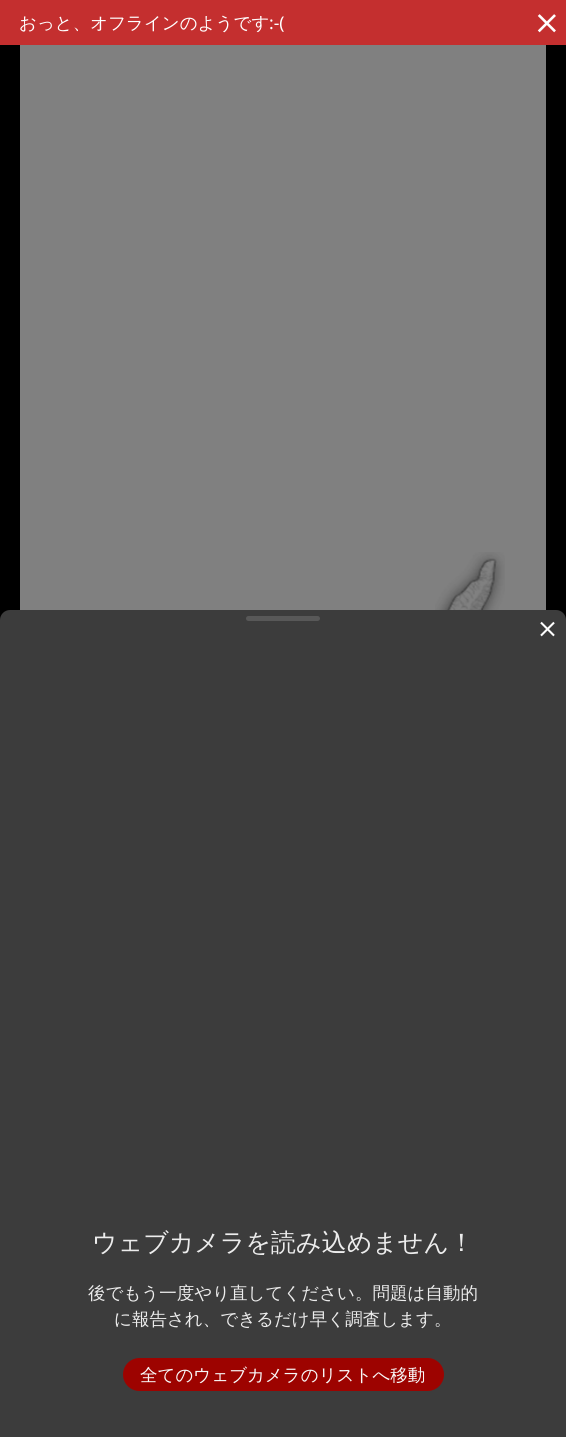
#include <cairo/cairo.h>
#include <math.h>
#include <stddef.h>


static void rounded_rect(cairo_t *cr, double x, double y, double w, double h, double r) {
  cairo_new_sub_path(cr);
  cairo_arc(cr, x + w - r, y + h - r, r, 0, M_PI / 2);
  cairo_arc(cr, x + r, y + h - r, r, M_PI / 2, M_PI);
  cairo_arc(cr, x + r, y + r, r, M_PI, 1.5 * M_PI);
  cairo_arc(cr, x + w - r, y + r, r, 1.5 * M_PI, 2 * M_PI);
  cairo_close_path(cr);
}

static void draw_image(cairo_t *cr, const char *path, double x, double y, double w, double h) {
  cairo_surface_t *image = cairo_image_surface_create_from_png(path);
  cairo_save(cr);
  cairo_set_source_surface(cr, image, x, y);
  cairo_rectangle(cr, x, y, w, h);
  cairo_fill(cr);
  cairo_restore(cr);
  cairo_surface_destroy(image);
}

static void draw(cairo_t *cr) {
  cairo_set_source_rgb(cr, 0, 0, 0);
  cairo_paint(cr);
  cairo_set_source_rgb(cr, 196 / 255.0, 47 / 255.0, 47 / 255.0);
  cairo_rectangle(cr, 0, 0, 566, 45);
  cairo_fill(cr);
  draw_image(cr, "images/1.png", 537, 14, 19, 19);
  cairo_set_source_rgb(cr, 60 / 255.0, 60 / 255.0, 60 / 255.0);
  cairo_new_path(cr);
  cairo_move_to(cr, 10, 610);
  cairo_line_to(cr, 556, 610);
  cairo_curve_to(cr, 561.5, 610, 566, 614.5, 566, 620);
  cairo_line_to(cr, 566, 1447);
  cairo_line_to(cr, 0, 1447);
  cairo_line_to(cr, 0, 620);
  cairo_curve_to(cr, 0, 614.5, 4.5, 610, 10, 610);
  cairo_close_path(cr);
  cairo_fill(cr);
  cairo_set_source_rgb(cr, 88 / 255.0, 88 / 255.0, 88 / 255.0);
  rounded_rect(cr, 246, 616, 74, 5, 2.5);
  cairo_fill(cr);
  draw_image(cr, "images/2.png", 540, 621, 15, 16);
  cairo_set_source_rgb(cr, 157 / 255.0, 3 / 255.0, 0);
  rounded_rect(cr, 123, 1358, 321, 33, 16.5);
  cairo_fill(cr);
  cairo_set_source_rgb(cr, 128 / 255.0, 128 / 255.0, 128 / 255.0);
  cairo_rectangle(cr, 20, 45, 526, 565);
  cairo_fill(cr);
  draw_image(cr, "images/3.png", 435, 552, 70, 58);
  cairo_select_font_face(cr, "WenQuanYi Zen Hei Medium", CAIRO_FONT_SLANT_NORMAL, CAIRO_FONT_WEIGHT_NORMAL);
  cairo_set_font_size(cr, 17.5);
  cairo_set_source_rgb(cr, 1, 1, 1);
  cairo_move_to(cr, 19, 29);
  cairo_show_text(cr, "おっと、オフラインのようです");
  cairo_select_font_face(cr, "Noto Sans", CAIRO_FONT_SLANT_NORMAL, CAIRO_FONT_WEIGHT_NORMAL);
  cairo_move_to(cr, 269, 29);
  cairo_show_text(cr, ":-(");
  cairo_select_font_face(cr, "WenQuanYi Zen Hei Medium", CAIRO_FONT_SLANT_NORMAL, CAIRO_FONT_WEIGHT_NORMAL);
  cairo_set_font_size(cr, 25);
  cairo_set_source_rgb(cr, 236 / 255.0, 236 / 255.0, 236 / 255.0);
  cairo_move_to(cr, 92, 1251);
  cairo_show_text(cr, "ウェブカメラを読み込めません！");
  cairo_set_font_size(cr, 17.5);
  cairo_move_to(cr, 88, 1299);
  cairo_show_text(cr, "後でもう一度やり直してください。問題は自動的");
  cairo_move_to(cr, 114, 1325);
  cairo_show_text(cr, "に報告され、できるだけ早く調査します。");
  cairo_set_source_rgb(cr, 248 / 255.0, 248 / 255.0, 248 / 255.0);
  cairo_move_to(cr, 140, 1381);
  cairo_show_text(cr, "全てのウェブカメラのリストへ移動");
}

int main(void) {
  cairo_surface_t *surface = cairo_image_surface_create(CAIRO_FORMAT_RGB24, 566, 1437);
  cairo_t *cr = cairo_create(surface);
  cairo_font_options_t *options = cairo_font_options_create();
  cairo_font_options_set_hint_metrics(options, CAIRO_HINT_METRICS_OFF);
  cairo_font_options_set_hint_style(options, CAIRO_HINT_STYLE_NONE);
  cairo_set_font_options(cr, options);
  cairo_set_miter_limit(cr, 4);
  draw(cr);
  cairo_surface_write_to_png(surface, "out.png");
  cairo_font_options_destroy(options);
  cairo_destroy(cr);
  cairo_surface_destroy(surface);
  return 0;
}
